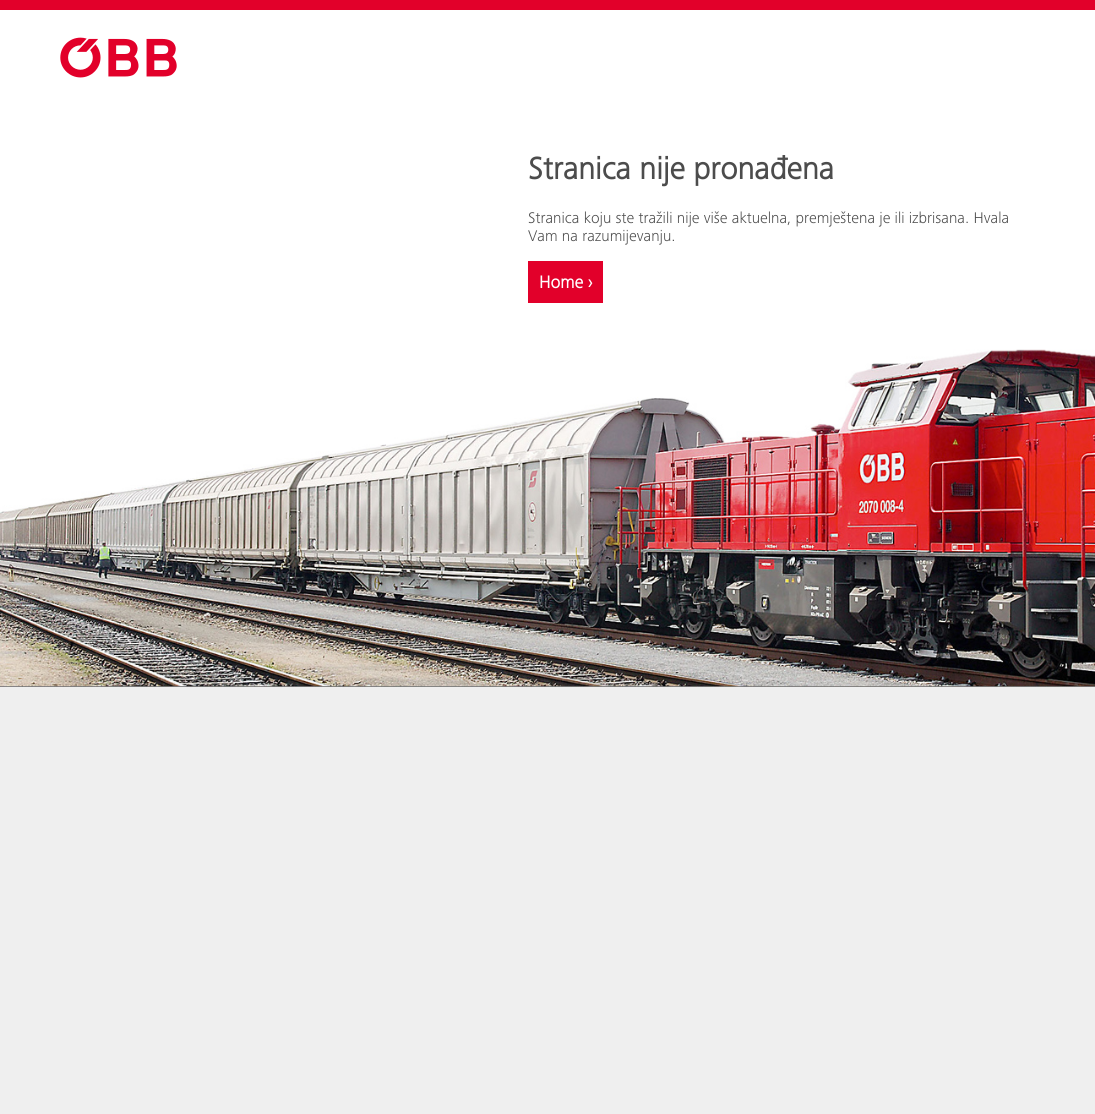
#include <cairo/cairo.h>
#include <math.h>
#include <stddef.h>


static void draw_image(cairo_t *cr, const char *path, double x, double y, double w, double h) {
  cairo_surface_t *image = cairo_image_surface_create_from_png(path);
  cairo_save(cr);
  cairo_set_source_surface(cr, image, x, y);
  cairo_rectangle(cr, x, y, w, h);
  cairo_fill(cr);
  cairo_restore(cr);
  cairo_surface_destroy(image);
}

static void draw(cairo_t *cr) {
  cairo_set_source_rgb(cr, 239 / 255.0, 239 / 255.0, 239 / 255.0);
  cairo_paint(cr);
  cairo_set_source_rgb(cr, 1, 1, 1);
  cairo_rectangle(cr, 0, 10, 1095, 339);
  cairo_fill(cr);
  cairo_set_source_rgb(cr, 226 / 255.0, 0, 42 / 255.0);
  cairo_rectangle(cr, 0, 0, 1095, 10);
  cairo_fill(cr);
  draw_image(cr, "images/1.png", 60, 37, 117, 41);
  cairo_rectangle(cr, 528, 261, 75, 42);
  cairo_fill(cr);
  draw_image(cr, "images/2.png", 0, 349, 1095, 338);
  cairo_select_font_face(cr, "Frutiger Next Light", CAIRO_FONT_SLANT_NORMAL, CAIRO_FONT_WEIGHT_BOLD);
  cairo_set_font_size(cr, 32);
  cairo_set_source_rgb(cr, 76 / 255.0, 76 / 255.0, 76 / 255.0);
  cairo_move_to(cr, 528, 179);
  cairo_show_text(cr, "Stranica nije pronađena");
  cairo_select_font_face(cr, "Frutiger Next Light Light", CAIRO_FONT_SLANT_NORMAL, CAIRO_FONT_WEIGHT_NORMAL);
  cairo_set_font_size(cr, 16);
  cairo_move_to(cr, 528, 223);
  cairo_show_text(cr, "Stranica koju ste tražili nije više aktuelna, premještena je ili izbrisana. Hvala");
  cairo_move_to(cr, 528, 241);
  cairo_show_text(cr, "Vam na razumijevanju.");
  cairo_select_font_face(cr, "Frutiger Next Light", CAIRO_FONT_SLANT_NORMAL, CAIRO_FONT_WEIGHT_BOLD);
  cairo_set_font_size(cr, 18);
  cairo_set_source_rgb(cr, 1, 1, 1);
  cairo_move_to(cr, 539, 288);
  cairo_show_text(cr, "Home ›");
}

int main(void) {
  cairo_surface_t *surface = cairo_image_surface_create(CAIRO_FORMAT_RGB24, 1095, 1114);
  cairo_t *cr = cairo_create(surface);
  cairo_font_options_t *options = cairo_font_options_create();
  cairo_font_options_set_hint_metrics(options, CAIRO_HINT_METRICS_OFF);
  cairo_font_options_set_hint_style(options, CAIRO_HINT_STYLE_NONE);
  cairo_set_font_options(cr, options);
  cairo_set_miter_limit(cr, 4);
  draw(cr);
  cairo_surface_write_to_png(surface, "out.png");
  cairo_font_options_destroy(options);
  cairo_destroy(cr);
  cairo_surface_destroy(surface);
  return 0;
}
